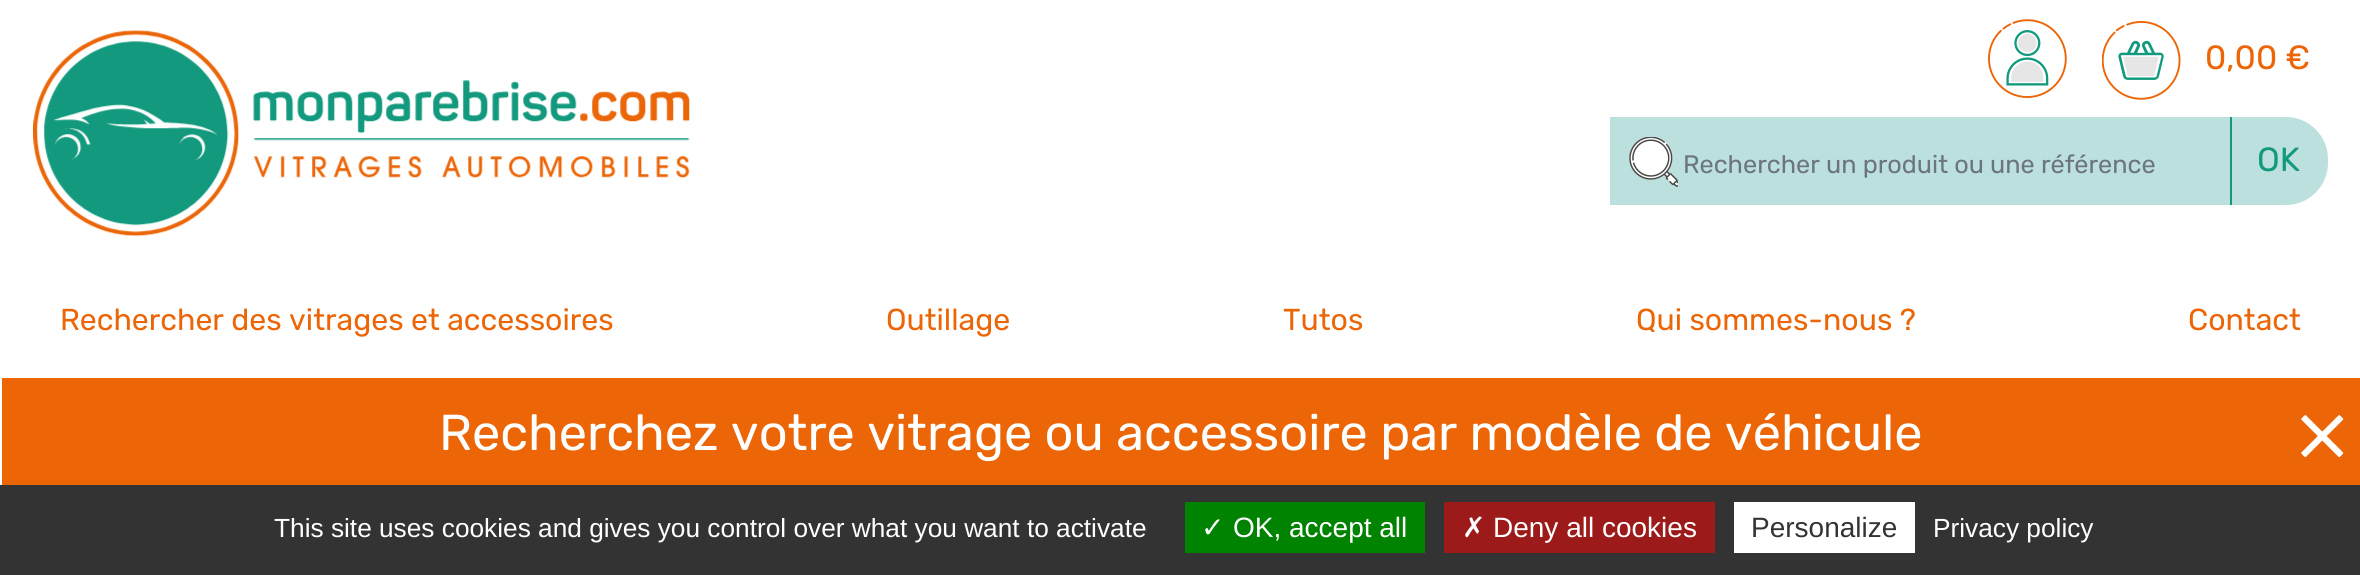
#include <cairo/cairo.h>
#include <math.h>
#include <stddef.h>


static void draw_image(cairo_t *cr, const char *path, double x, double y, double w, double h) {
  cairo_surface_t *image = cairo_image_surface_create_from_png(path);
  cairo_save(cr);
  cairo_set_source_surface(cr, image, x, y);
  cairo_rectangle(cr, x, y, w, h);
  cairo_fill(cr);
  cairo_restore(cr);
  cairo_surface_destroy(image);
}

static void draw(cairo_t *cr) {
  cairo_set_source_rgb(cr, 1, 1, 1);
  cairo_paint(cr);
  draw_image(cr, "images/1.png", 33, 30, 657, 207);
  draw_image(cr, "images/2.png", 1988, 19, 79, 79);
  draw_image(cr, "images/3.png", 2102, 21, 79, 79);
  cairo_set_source_rgb(cr, 187 / 255.0, 224 / 255.0, 221 / 255.0);
  cairo_new_path(cr);
  cairo_move_to(cr, 1610, 117);
  cairo_line_to(cr, 2286, 117);
  cairo_curve_to(cr, 2309, 117, 2328, 136, 2328, 159);
  cairo_line_to(cr, 2328, 163);
  cairo_curve_to(cr, 2328, 186, 2309, 205, 2286, 205);
  cairo_line_to(cr, 1610, 205);
  cairo_close_path(cr);
  cairo_fill(cr);
  draw_image(cr, "images/4.png", 1629, 137, 49, 50);
  cairo_set_source_rgb(cr, 18 / 255.0, 153 / 255.0, 126 / 255.0);
  cairo_rectangle(cr, 2230, 117, 2, 88);
  cairo_fill(cr);
  cairo_set_source_rgb(cr, 236 / 255.0, 102 / 255.0, 8 / 255.0);
  cairo_rectangle(cr, 2, 378, 2358, 107);
  cairo_fill(cr);
  draw_image(cr, "images/5.png", 2301, 415, 43, 43);
  cairo_set_source_rgb(cr, 51 / 255.0, 51 / 255.0, 51 / 255.0);
  cairo_rectangle(cr, 0, 485, 2360, 90);
  cairo_fill(cr);
  cairo_set_source_rgb(cr, 0, 131 / 255.0, 0);
  cairo_rectangle(cr, 1185, 502, 240, 51);
  cairo_fill(cr);
  cairo_set_source_rgb(cr, 156 / 255.0, 26 / 255.0, 26 / 255.0);
  cairo_rectangle(cr, 1444, 502, 271, 51);
  cairo_fill(cr);
  cairo_set_source_rgb(cr, 1, 1, 1);
  cairo_rectangle(cr, 1734, 502, 181, 51);
  cairo_fill(cr);
  cairo_select_font_face(cr, "Rubik Light", CAIRO_FONT_SLANT_NORMAL, CAIRO_FONT_WEIGHT_NORMAL);
  cairo_set_font_size(cr, 33.5);
  cairo_set_source_rgb(cr, 236 / 255.0, 102 / 255.0, 8 / 255.0);
  cairo_move_to(cr, 2205, 69);
  cairo_show_text(cr, "0,00 €");
  cairo_set_font_size(cr, 25.25);
  cairo_set_source_rgb(cr, 108 / 255.0, 117 / 255.0, 125 / 255.0);
  cairo_move_to(cr, 1683, 173);
  cairo_show_text(cr, "Rechercher un produit ou une référence");
  cairo_set_font_size(cr, 33.5);
  cairo_set_source_rgb(cr, 18 / 255.0, 153 / 255.0, 126 / 255.0);
  cairo_move_to(cr, 2257, 171);
  cairo_show_text(cr, "OK");
  cairo_set_font_size(cr, 30.25);
  cairo_set_source_rgb(cr, 236 / 255.0, 102 / 255.0, 8 / 255.0);
  cairo_move_to(cr, 60, 330);
  cairo_show_text(cr, "Rechercher des vitrages et accessoires");
  cairo_move_to(cr, 886, 330);
  cairo_show_text(cr, "Outillage");
  cairo_move_to(cr, 1283, 330);
  cairo_show_text(cr, "Tutos");
  cairo_move_to(cr, 1636, 330);
  cairo_show_text(cr, "Qui sommes-nous ?");
  cairo_move_to(cr, 2188, 330);
  cairo_show_text(cr, "Contact");
  cairo_set_font_size(cr, 50.4);
  cairo_set_source_rgb(cr, 1, 1, 1);
  cairo_move_to(cr, 439, 450);
  cairo_show_text(cr, "Recherchez votre vitrage ou accessoire par modèle de véhicule");
  cairo_select_font_face(cr, "Liberation Sans", CAIRO_FONT_SLANT_NORMAL, CAIRO_FONT_WEIGHT_NORMAL);
  cairo_set_font_size(cr, 26.25);
  cairo_move_to(cr, 274, 537);
  cairo_show_text(cr, "This site uses cookies and gives you control over what you want to activate");
  cairo_select_font_face(cr, "DejaVu Sans", CAIRO_FONT_SLANT_NORMAL, CAIRO_FONT_WEIGHT_NORMAL);
  cairo_set_font_size(cr, 28);
  cairo_move_to(cr, 1201, 537);
  cairo_show_text(cr, "✓");
  cairo_select_font_face(cr, "Liberation Sans", CAIRO_FONT_SLANT_NORMAL, CAIRO_FONT_WEIGHT_NORMAL);
  cairo_move_to(cr, 1233, 537);
  cairo_show_text(cr, "OK, accept all");
  cairo_select_font_face(cr, "DejaVu Sans", CAIRO_FONT_SLANT_NORMAL, CAIRO_FONT_WEIGHT_NORMAL);
  cairo_move_to(cr, 1462, 537);
  cairo_show_text(cr, "✗");
  cairo_select_font_face(cr, "Liberation Sans", CAIRO_FONT_SLANT_NORMAL, CAIRO_FONT_WEIGHT_NORMAL);
  cairo_move_to(cr, 1493, 537);
  cairo_show_text(cr, "Deny all cookies");
  cairo_set_source_rgb(cr, 51 / 255.0, 51 / 255.0, 51 / 255.0);
  cairo_move_to(cr, 1751, 537);
  cairo_show_text(cr, "Personalize");
  cairo_set_font_size(cr, 26.25);
  cairo_set_source_rgb(cr, 1, 1, 1);
  cairo_move_to(cr, 1933, 537);
  cairo_show_text(cr, "Privacy policy");
}

int main(void) {
  cairo_surface_t *surface = cairo_image_surface_create(CAIRO_FORMAT_RGB24, 2360, 575);
  cairo_t *cr = cairo_create(surface);
  cairo_font_options_t *options = cairo_font_options_create();
  cairo_font_options_set_hint_metrics(options, CAIRO_HINT_METRICS_OFF);
  cairo_font_options_set_hint_style(options, CAIRO_HINT_STYLE_NONE);
  cairo_set_font_options(cr, options);
  cairo_set_miter_limit(cr, 4);
  draw(cr);
  cairo_surface_write_to_png(surface, "out.png");
  cairo_font_options_destroy(options);
  cairo_destroy(cr);
  cairo_surface_destroy(surface);
  return 0;
}
